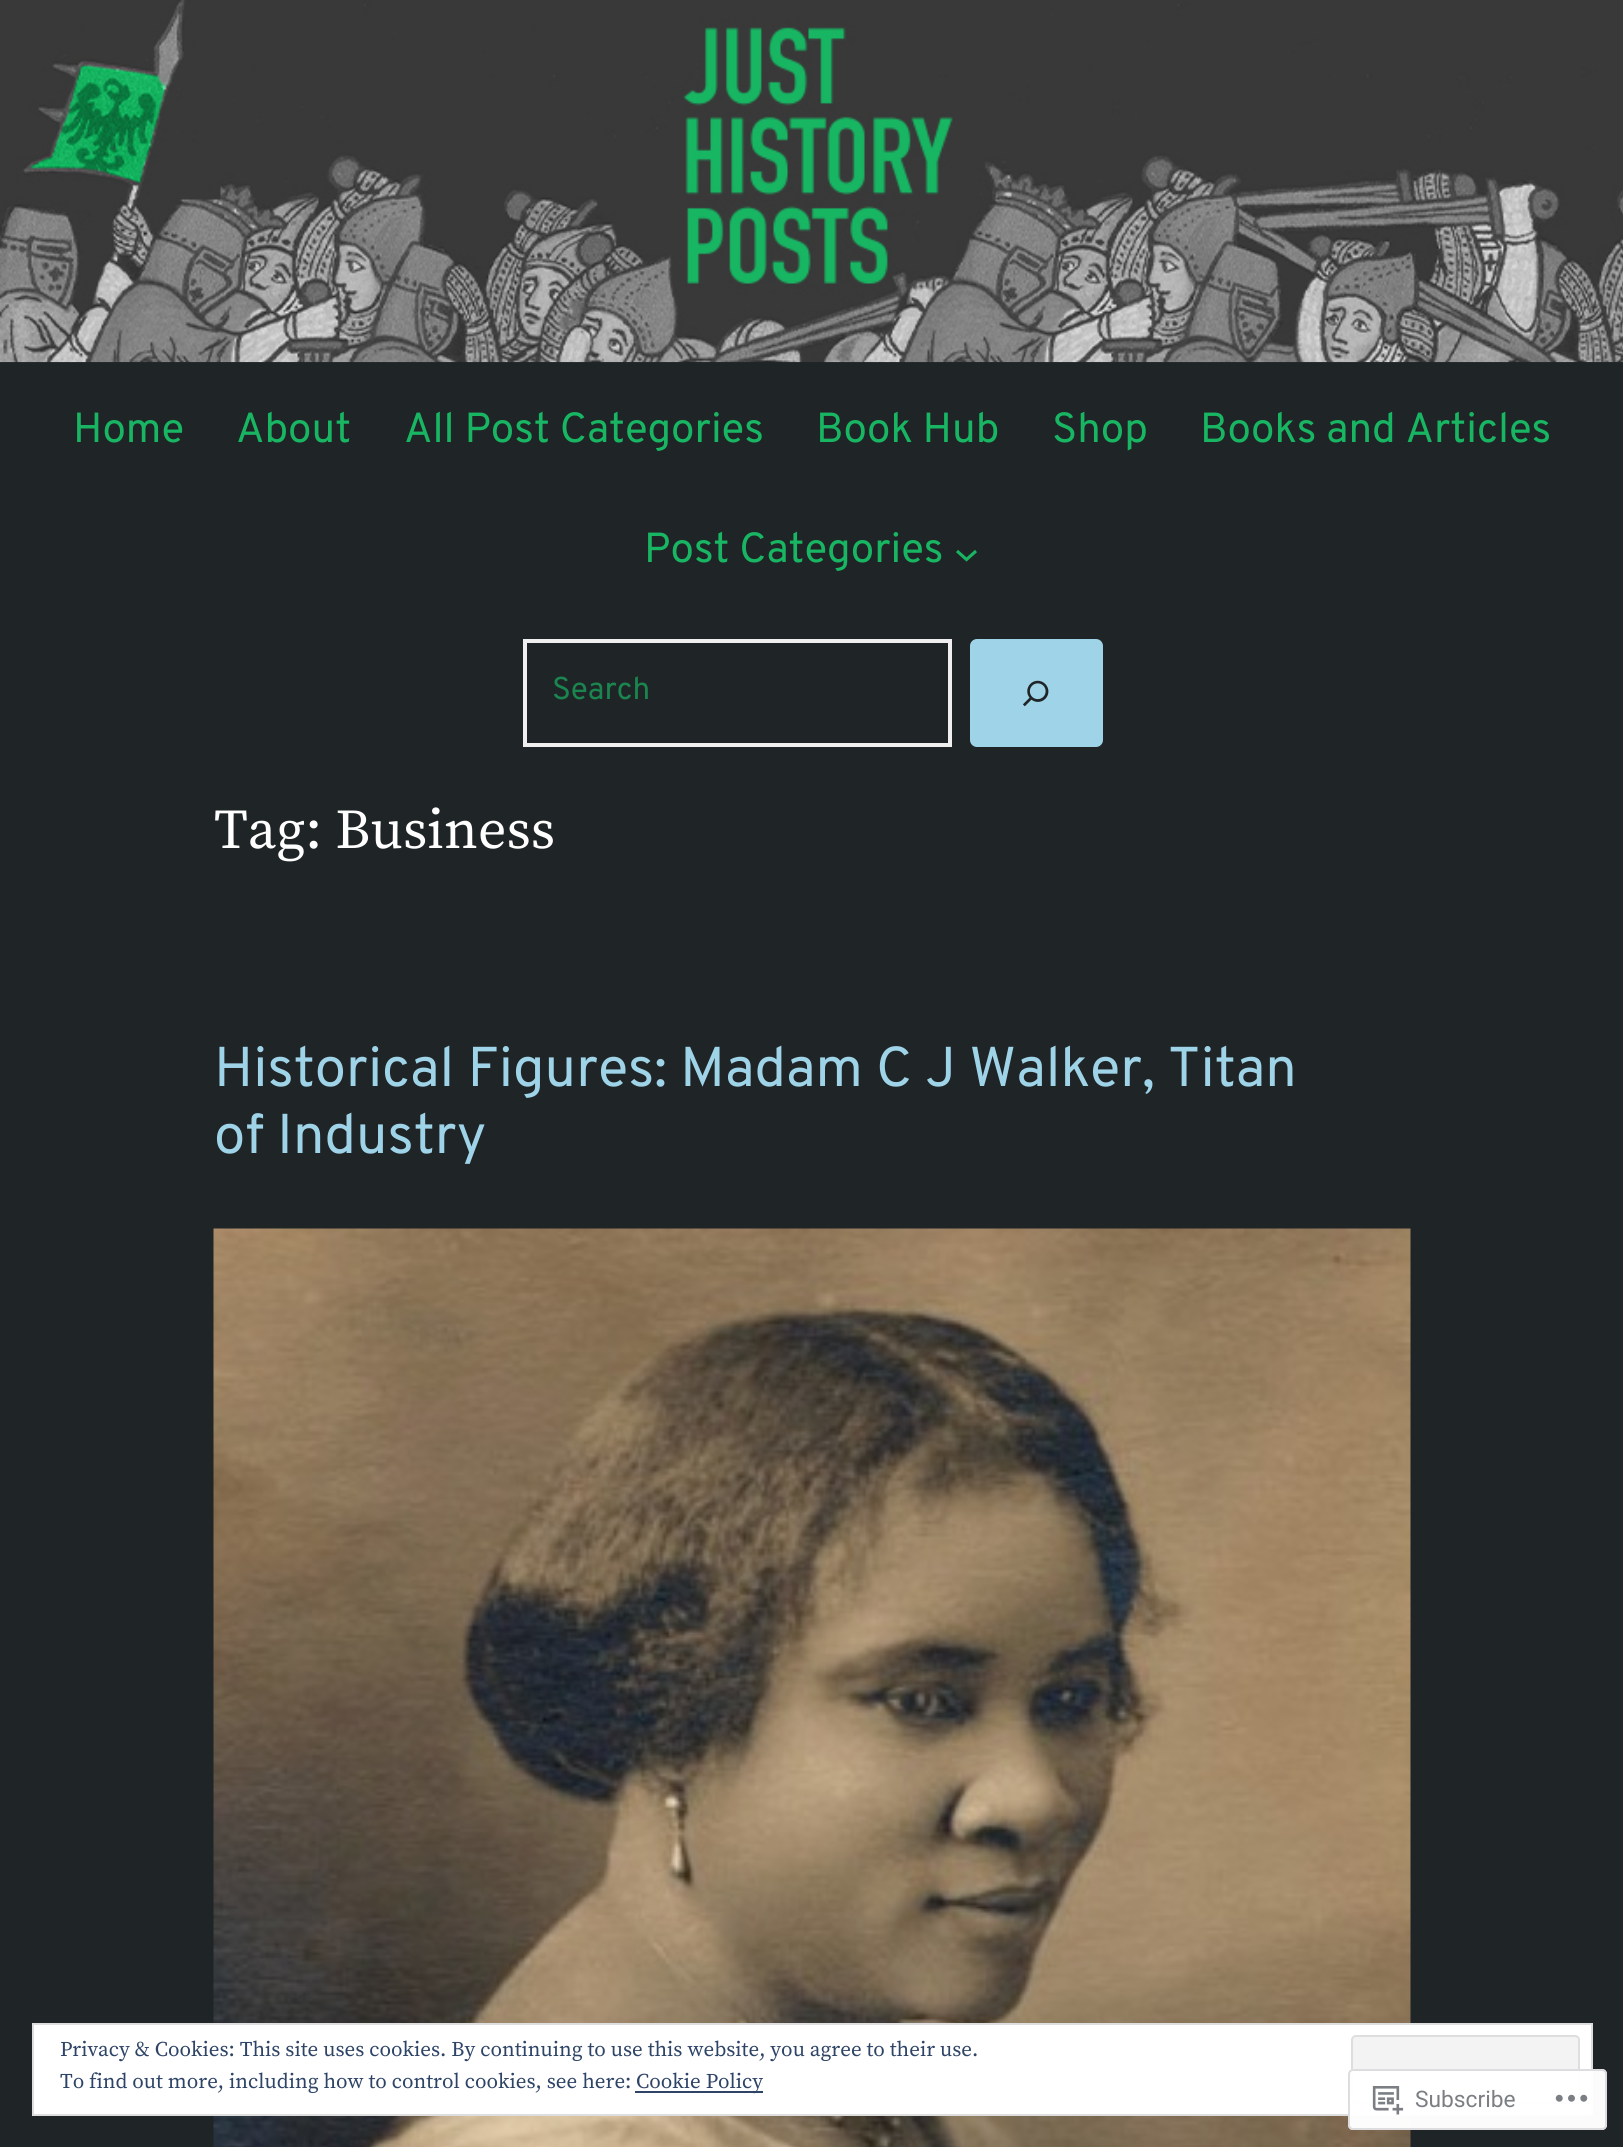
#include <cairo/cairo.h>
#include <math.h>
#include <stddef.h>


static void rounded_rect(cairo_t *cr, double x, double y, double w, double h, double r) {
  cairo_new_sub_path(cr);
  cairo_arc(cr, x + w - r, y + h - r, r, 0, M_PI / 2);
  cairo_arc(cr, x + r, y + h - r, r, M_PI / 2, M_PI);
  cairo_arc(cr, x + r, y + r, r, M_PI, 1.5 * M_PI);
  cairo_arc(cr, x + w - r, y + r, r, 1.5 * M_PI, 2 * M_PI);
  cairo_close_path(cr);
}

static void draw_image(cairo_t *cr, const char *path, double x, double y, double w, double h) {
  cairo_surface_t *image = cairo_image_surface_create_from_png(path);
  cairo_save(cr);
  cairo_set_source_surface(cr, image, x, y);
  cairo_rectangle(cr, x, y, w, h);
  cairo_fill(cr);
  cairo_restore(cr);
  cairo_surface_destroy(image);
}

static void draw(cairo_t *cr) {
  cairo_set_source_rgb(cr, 31 / 255.0, 37 / 255.0, 39 / 255.0);
  cairo_paint(cr);
  draw_image(cr, "images/1.png", 0, 0, 1623, 363);
  cairo_new_path(cr);
  cairo_move_to(cr, 957, 551);
  cairo_line_to(cr, 966.5, 559.5);
  cairo_line_to(cr, 976, 551);
  cairo_set_source_rgb(cr, 24 / 255.0, 182 / 255.0, 99 / 255.0);
  cairo_set_line_width(cr, 3.1);
  cairo_stroke(cr);
  cairo_rectangle(cr, 525, 641, 425, 104);
  cairo_set_source_rgb(cr, 239 / 255.0, 239 / 255.0, 239 / 255.0);
  cairo_set_line_width(cr, 4);
  cairo_stroke(cr);
  cairo_set_source_rgb(cr, 159 / 255.0, 211 / 255.0, 232 / 255.0);
  rounded_rect(cr, 970, 639, 133, 108, 7);
  cairo_fill(cr);
  draw_image(cr, "images/2.png", 1023, 680, 26, 27);
  draw_image(cr, "images/3.png", 213, 1228, 1198, 919);
  cairo_set_source_rgb(cr, 1, 1, 1);
  cairo_rectangle(cr, 33, 2024, 1559, 91);
  cairo_fill_preserve(cr);
  cairo_set_source_rgb(cr, 222 / 255.0, 222 / 255.0, 222 / 255.0);
  cairo_set_line_width(cr, 2);
  cairo_stroke(cr);
  cairo_set_source_rgb(cr, 243 / 255.0, 243 / 255.0, 243 / 255.0);
  rounded_rect(cr, 1352, 2036, 227, 67, 4);
  cairo_fill_preserve(cr);
  cairo_set_source_rgb(cr, 222 / 255.0, 222 / 255.0, 222 / 255.0);
  cairo_stroke(cr);
  cairo_set_source_rgb(cr, 46 / 255.0, 68 / 255.0, 103 / 255.0);
  cairo_rectangle(cr, 635, 2091, 128, 2);
  cairo_fill(cr);
  cairo_set_source_rgba(cr, 1, 1, 1, 0.98);
  rounded_rect(cr, 1348, 2069, 259, 61, 5);
  cairo_fill(cr);
  rounded_rect(cr, 1349, 2070, 257, 59, 4);
  cairo_set_source_rgba(cr, 220 / 255.0, 220 / 255.0, 222 / 255.0, 0.98);
  cairo_stroke(cr);
  draw_image(cr, "images/4.png", 1372, 2086, 32, 29);
  draw_image(cr, "images/5.png", 1555, 2094, 33, 8);
  cairo_select_font_face(cr, "Overpass", CAIRO_FONT_SLANT_NORMAL, CAIRO_FONT_WEIGHT_NORMAL);
  cairo_set_font_size(cr, 42);
  cairo_set_source_rgb(cr, 24 / 255.0, 182 / 255.0, 99 / 255.0);
  cairo_move_to(cr, 73, 442);
  cairo_show_text(cr, "Home");
  cairo_move_to(cr, 236, 442);
  cairo_show_text(cr, "About");
  cairo_move_to(cr, 404, 442);
  cairo_show_text(cr, "All Post Categories");
  cairo_move_to(cr, 816, 442);
  cairo_show_text(cr, "Book Hub");
  cairo_move_to(cr, 1052, 442);
  cairo_show_text(cr, "Shop");
  cairo_move_to(cr, 1200, 442);
  cairo_show_text(cr, "Books and Articles");
  cairo_move_to(cr, 644, 562);
  cairo_show_text(cr, "Post Categories");
  cairo_set_font_size(cr, 31.5);
  cairo_set_source_rgb(cr, 26 / 255.0, 133 / 255.0, 79 / 255.0);
  cairo_move_to(cr, 552, 699);
  cairo_show_text(cr, "Search");
  cairo_select_font_face(cr, "Source Serif Pro", CAIRO_FONT_SLANT_NORMAL, CAIRO_FONT_WEIGHT_NORMAL);
  cairo_set_font_size(cr, 56);
  cairo_set_source_rgb(cr, 1, 1, 1);
  cairo_move_to(cr, 214, 848);
  cairo_show_text(cr, "Tag: Business");
  cairo_select_font_face(cr, "Overpass", CAIRO_FONT_SLANT_NORMAL, CAIRO_FONT_WEIGHT_NORMAL);
  cairo_set_source_rgb(cr, 159 / 255.0, 211 / 255.0, 232 / 255.0);
  cairo_move_to(cr, 214, 1086);
  cairo_show_text(cr, "Historical Figures: Madam C J Walker, Titan");
  cairo_move_to(cr, 214, 1153);
  cairo_show_text(cr, "of Industry");
  cairo_select_font_face(cr, "Source Serif Pro", CAIRO_FONT_SLANT_NORMAL, CAIRO_FONT_WEIGHT_NORMAL);
  cairo_set_font_size(cr, 21);
  cairo_set_source_rgb(cr, 46 / 255.0, 68 / 255.0, 103 / 255.0);
  cairo_move_to(cr, 60, 2056);
  cairo_show_text(cr, "Privacy & Cookies: This site uses cookies. By continuing to use this website, you agree to their use.");
  cairo_move_to(cr, 60, 2088);
  cairo_show_text(cr, "To find out more, including how to control cookies, see here:");
  cairo_move_to(cr, 636, 2088);
  cairo_show_text(cr, "Cookie Policy");
  cairo_select_font_face(cr, "Roboto", CAIRO_FONT_SLANT_NORMAL, CAIRO_FONT_WEIGHT_NORMAL);
  cairo_set_font_size(cr, 22.75);
  cairo_set_source_rgb(cr, 123 / 255.0, 127 / 255.0, 132 / 255.0);
  cairo_move_to(cr, 1415, 2107);
  cairo_show_text(cr, "Subscribe");
}

int main(void) {
  cairo_surface_t *surface = cairo_image_surface_create(CAIRO_FORMAT_RGB24, 1623, 2147);
  cairo_t *cr = cairo_create(surface);
  cairo_font_options_t *options = cairo_font_options_create();
  cairo_font_options_set_hint_metrics(options, CAIRO_HINT_METRICS_OFF);
  cairo_font_options_set_hint_style(options, CAIRO_HINT_STYLE_NONE);
  cairo_set_font_options(cr, options);
  cairo_set_miter_limit(cr, 4);
  draw(cr);
  cairo_surface_write_to_png(surface, "out.png");
  cairo_font_options_destroy(options);
  cairo_destroy(cr);
  cairo_surface_destroy(surface);
  return 0;
}
